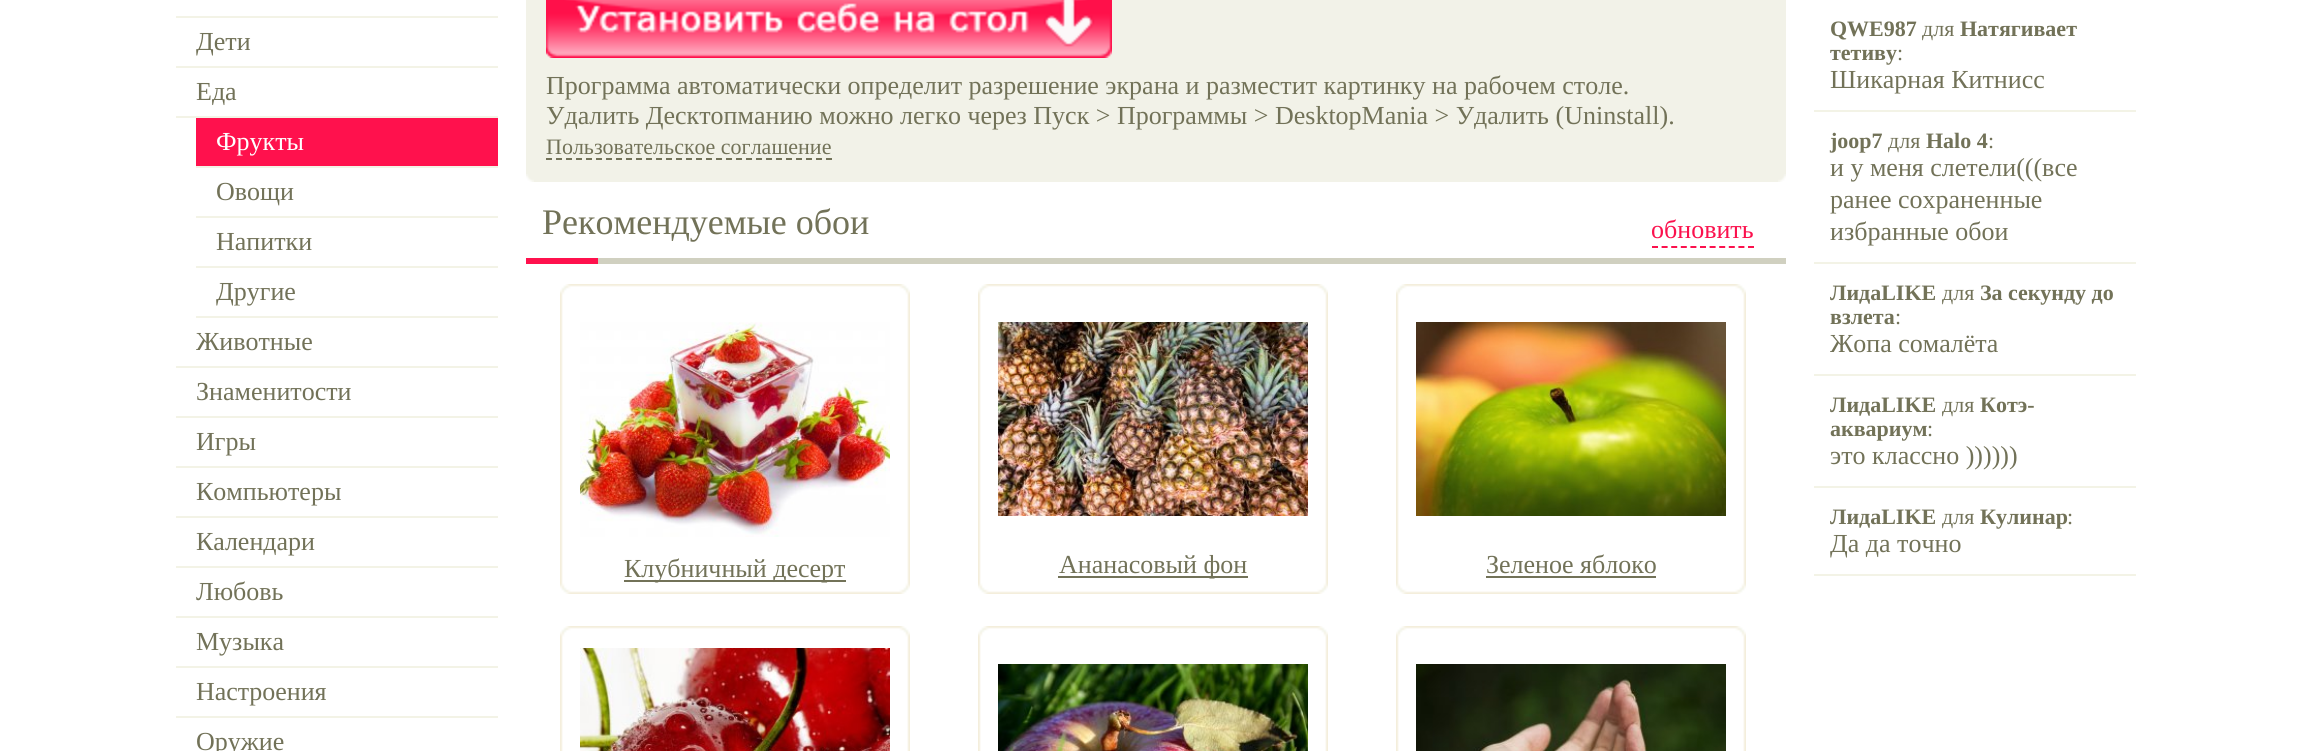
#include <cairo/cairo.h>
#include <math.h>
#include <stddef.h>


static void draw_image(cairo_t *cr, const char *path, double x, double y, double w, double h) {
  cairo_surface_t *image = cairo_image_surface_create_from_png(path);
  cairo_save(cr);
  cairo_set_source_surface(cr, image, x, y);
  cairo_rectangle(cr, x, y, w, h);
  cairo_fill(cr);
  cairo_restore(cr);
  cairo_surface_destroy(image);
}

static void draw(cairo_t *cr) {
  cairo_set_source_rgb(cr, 1, 1, 1);
  cairo_paint(cr);
  cairo_set_source_rgb(cr, 243 / 255.0, 243 / 255.0, 230 / 255.0);
  cairo_rectangle(cr, 176, 16, 322, 2);
  cairo_fill(cr);
  cairo_rectangle(cr, 176, 66, 322, 2);
  cairo_fill(cr);
  cairo_rectangle(cr, 176, 116, 322, 2);
  cairo_fill(cr);
  cairo_set_source_rgb(cr, 1, 17 / 255.0, 77 / 255.0);
  cairo_rectangle(cr, 196, 118, 302, 48);
  cairo_fill(cr);
  cairo_set_source_rgb(cr, 243 / 255.0, 243 / 255.0, 230 / 255.0);
  cairo_rectangle(cr, 196, 166, 302, 2);
  cairo_fill(cr);
  cairo_rectangle(cr, 196, 216, 302, 2);
  cairo_fill(cr);
  cairo_rectangle(cr, 196, 266, 302, 2);
  cairo_fill(cr);
  cairo_rectangle(cr, 196, 316, 302, 2);
  cairo_fill(cr);
  cairo_rectangle(cr, 176, 366, 322, 2);
  cairo_fill(cr);
  cairo_rectangle(cr, 176, 416, 322, 2);
  cairo_fill(cr);
  cairo_rectangle(cr, 176, 466, 322, 2);
  cairo_fill(cr);
  cairo_rectangle(cr, 176, 516, 322, 2);
  cairo_fill(cr);
  cairo_rectangle(cr, 176, 566, 322, 2);
  cairo_fill(cr);
  cairo_rectangle(cr, 176, 616, 322, 2);
  cairo_fill(cr);
  cairo_rectangle(cr, 176, 666, 322, 2);
  cairo_fill(cr);
  cairo_rectangle(cr, 176, 716, 322, 2);
  cairo_fill(cr);
  cairo_set_source_rgb(cr, 242 / 255.0, 242 / 255.0, 232 / 255.0);
  cairo_rectangle(cr, 526, 0, 1260, 182);
  cairo_fill(cr);
  draw_image(cr, "images/1.png", 546, 0, 566, 58);
  cairo_new_path(cr);
  cairo_move_to(cr, 546, 159);
  cairo_line_to(cr, 832, 159);
  cairo_set_source_rgb(cr, 114 / 255.0, 114 / 255.0, 88 / 255.0);
  cairo_set_dash(cr, (double[]){6, 4}, 2, 0);
  cairo_stroke(cr);
  draw_image(cr, "images/2.png", 526, 174, 8, 8);
  draw_image(cr, "images/3.png", 1778, 174, 8, 8);
  cairo_set_source_rgb(cr, 208 / 255.0, 208 / 255.0, 192 / 255.0);
  cairo_rectangle(cr, 598, 258, 1188, 6);
  cairo_fill(cr);
  cairo_new_path(cr);
  cairo_move_to(cr, 1652, 247);
  cairo_line_to(cr, 1754, 247);
  cairo_set_source_rgb(cr, 251 / 255.0, 17 / 255.0, 77 / 255.0);
  cairo_set_dash(cr, (double[]){6, 3.6}, 2, 0);
  cairo_stroke(cr);
  cairo_set_source_rgb(cr, 1, 17 / 255.0, 77 / 255.0);
  cairo_rectangle(cr, 526, 258, 72, 6);
  cairo_fill(cr);
  draw_image(cr, "images/4.png", 560, 284, 350, 310);
  draw_image(cr, "images/5.png", 580, 322, 310, 215);
  cairo_set_source_rgb(cr, 114 / 255.0, 114 / 255.0, 88 / 255.0);
  cairo_rectangle(cr, 624, 580, 222, 2);
  cairo_fill(cr);
  draw_image(cr, "images/4.png", 978, 284, 350, 310);
  draw_image(cr, "images/6.png", 998, 322, 310, 194);
  cairo_rectangle(cr, 1058, 576, 190, 2);
  cairo_fill(cr);
  draw_image(cr, "images/4.png", 1396, 284, 350, 310);
  draw_image(cr, "images/7.png", 1416, 322, 310, 194);
  cairo_rectangle(cr, 1486, 576, 170, 2);
  cairo_fill(cr);
  draw_image(cr, "images/8.png", 560, 626, 350, 125);
  draw_image(cr, "images/9.png", 580, 648, 310, 103);
  draw_image(cr, "images/8.png", 978, 626, 350, 125);
  draw_image(cr, "images/10.png", 998, 664, 310, 87);
  draw_image(cr, "images/8.png", 1396, 626, 350, 125);
  draw_image(cr, "images/11.png", 1416, 664, 310, 87);
  cairo_set_source_rgb(cr, 243 / 255.0, 243 / 255.0, 230 / 255.0);
  cairo_rectangle(cr, 1814, 110, 322, 2);
  cairo_fill(cr);
  cairo_rectangle(cr, 1814, 262, 322, 2);
  cairo_fill(cr);
  cairo_rectangle(cr, 1814, 374, 322, 2);
  cairo_fill(cr);
  cairo_rectangle(cr, 1814, 486, 322, 2);
  cairo_fill(cr);
  cairo_rectangle(cr, 1814, 574, 322, 2);
  cairo_fill(cr);
  cairo_select_font_face(cr, "Liberation Serif", CAIRO_FONT_SLANT_NORMAL, CAIRO_FONT_WEIGHT_NORMAL);
  cairo_set_font_size(cr, 26);
  cairo_set_source_rgb(cr, 114 / 255.0, 114 / 255.0, 88 / 255.0);
  cairo_move_to(cr, 196, 50);
  cairo_show_text(cr, "Дети");
  cairo_move_to(cr, 196, 100);
  cairo_show_text(cr, "Еда");
  cairo_set_source_rgb(cr, 1, 1, 1);
  cairo_move_to(cr, 216, 150);
  cairo_show_text(cr, "Фрукты");
  cairo_set_source_rgb(cr, 114 / 255.0, 114 / 255.0, 88 / 255.0);
  cairo_move_to(cr, 216, 200);
  cairo_show_text(cr, "Овощи");
  cairo_move_to(cr, 216, 250);
  cairo_show_text(cr, "Напитки");
  cairo_move_to(cr, 216, 300);
  cairo_show_text(cr, "Другие");
  cairo_move_to(cr, 196, 350);
  cairo_show_text(cr, "Животные");
  cairo_move_to(cr, 196, 400);
  cairo_show_text(cr, "Знаменитости");
  cairo_move_to(cr, 196, 450);
  cairo_show_text(cr, "Игры");
  cairo_move_to(cr, 196, 500);
  cairo_show_text(cr, "Компьютеры");
  cairo_move_to(cr, 196, 550);
  cairo_show_text(cr, "Календари");
  cairo_move_to(cr, 196, 600);
  cairo_show_text(cr, "Любовь");
  cairo_move_to(cr, 196, 650);
  cairo_show_text(cr, "Музыка");
  cairo_move_to(cr, 196, 700);
  cairo_show_text(cr, "Настроения");
  cairo_move_to(cr, 196, 750);
  cairo_show_text(cr, "Оружие");
  cairo_move_to(cr, 546, 94);
  cairo_show_text(cr, "Программа автоматически определит разрешение экрана и разместит картинку на рабочем столе.");
  cairo_move_to(cr, 546, 124);
  cairo_show_text(cr, "Удалить Десктопманию можно легко через Пуск > Программы > DesktopMania > Удалить (Uninstall).");
  cairo_set_font_size(cr, 22);
  cairo_move_to(cr, 546, 154);
  cairo_show_text(cr, "Пользовательское соглашение");
  cairo_set_font_size(cr, 36);
  cairo_move_to(cr, 542, 234);
  cairo_show_text(cr, "Рекомендуемые обои");
  cairo_set_font_size(cr, 26);
  cairo_set_source_rgb(cr, 251 / 255.0, 17 / 255.0, 77 / 255.0);
  cairo_move_to(cr, 1651, 238);
  cairo_show_text(cr, "обновить");
  cairo_set_source_rgb(cr, 114 / 255.0, 114 / 255.0, 88 / 255.0);
  cairo_move_to(cr, 624, 577);
  cairo_show_text(cr, "Клубничный десерт");
  cairo_move_to(cr, 1059, 573);
  cairo_show_text(cr, "Ананасовый фон");
  cairo_move_to(cr, 1486, 573);
  cairo_show_text(cr, "Зеленое яблоко");
  cairo_select_font_face(cr, "Liberation Serif", CAIRO_FONT_SLANT_NORMAL, CAIRO_FONT_WEIGHT_BOLD);
  cairo_set_font_size(cr, 22);
  cairo_move_to(cr, 1830, 36);
  cairo_show_text(cr, "QWE987");
  cairo_select_font_face(cr, "Liberation Serif", CAIRO_FONT_SLANT_NORMAL, CAIRO_FONT_WEIGHT_NORMAL);
  cairo_move_to(cr, 1922, 36);
  cairo_show_text(cr, "для");
  cairo_select_font_face(cr, "Liberation Serif", CAIRO_FONT_SLANT_NORMAL, CAIRO_FONT_WEIGHT_BOLD);
  cairo_move_to(cr, 1960, 36);
  cairo_show_text(cr, "Натягивает");
  cairo_move_to(cr, 1830, 60);
  cairo_show_text(cr, "тетиву");
  cairo_select_font_face(cr, "Liberation Serif", CAIRO_FONT_SLANT_NORMAL, CAIRO_FONT_WEIGHT_NORMAL);
  cairo_move_to(cr, 1897, 60);
  cairo_show_text(cr, ":");
  cairo_set_font_size(cr, 26);
  cairo_move_to(cr, 1830, 88);
  cairo_show_text(cr, "Шикарная Китнисс");
  cairo_select_font_face(cr, "Liberation Serif", CAIRO_FONT_SLANT_NORMAL, CAIRO_FONT_WEIGHT_BOLD);
  cairo_set_font_size(cr, 22);
  cairo_move_to(cr, 1830, 148);
  cairo_show_text(cr, "joop7");
  cairo_select_font_face(cr, "Liberation Serif", CAIRO_FONT_SLANT_NORMAL, CAIRO_FONT_WEIGHT_NORMAL);
  cairo_move_to(cr, 1888, 148);
  cairo_show_text(cr, "для");
  cairo_select_font_face(cr, "Liberation Serif", CAIRO_FONT_SLANT_NORMAL, CAIRO_FONT_WEIGHT_BOLD);
  cairo_move_to(cr, 1926, 148);
  cairo_show_text(cr, "Halo 4");
  cairo_select_font_face(cr, "Liberation Serif", CAIRO_FONT_SLANT_NORMAL, CAIRO_FONT_WEIGHT_NORMAL);
  cairo_move_to(cr, 1988, 148);
  cairo_show_text(cr, ":");
  cairo_set_font_size(cr, 26);
  cairo_move_to(cr, 1830, 176);
  cairo_show_text(cr, "и у меня слетели(((все");
  cairo_move_to(cr, 1830, 208);
  cairo_show_text(cr, "ранее сохраненные");
  cairo_move_to(cr, 1830, 240);
  cairo_show_text(cr, "избранные обои");
  cairo_select_font_face(cr, "Liberation Serif", CAIRO_FONT_SLANT_NORMAL, CAIRO_FONT_WEIGHT_BOLD);
  cairo_set_font_size(cr, 22);
  cairo_move_to(cr, 1830, 300);
  cairo_show_text(cr, "ЛидаLIKE");
  cairo_select_font_face(cr, "Liberation Serif", CAIRO_FONT_SLANT_NORMAL, CAIRO_FONT_WEIGHT_NORMAL);
  cairo_move_to(cr, 1942, 300);
  cairo_show_text(cr, "для");
  cairo_select_font_face(cr, "Liberation Serif", CAIRO_FONT_SLANT_NORMAL, CAIRO_FONT_WEIGHT_BOLD);
  cairo_move_to(cr, 1980, 300);
  cairo_show_text(cr, "За секунду до");
  cairo_move_to(cr, 1830, 324);
  cairo_show_text(cr, "взлета");
  cairo_select_font_face(cr, "Liberation Serif", CAIRO_FONT_SLANT_NORMAL, CAIRO_FONT_WEIGHT_NORMAL);
  cairo_move_to(cr, 1895, 324);
  cairo_show_text(cr, ":");
  cairo_set_font_size(cr, 26);
  cairo_move_to(cr, 1830, 352);
  cairo_show_text(cr, "Жопа сомалёта");
  cairo_select_font_face(cr, "Liberation Serif", CAIRO_FONT_SLANT_NORMAL, CAIRO_FONT_WEIGHT_BOLD);
  cairo_set_font_size(cr, 22);
  cairo_move_to(cr, 1830, 412);
  cairo_show_text(cr, "ЛидаLIKE");
  cairo_select_font_face(cr, "Liberation Serif", CAIRO_FONT_SLANT_NORMAL, CAIRO_FONT_WEIGHT_NORMAL);
  cairo_move_to(cr, 1942, 412);
  cairo_show_text(cr, "для");
  cairo_select_font_face(cr, "Liberation Serif", CAIRO_FONT_SLANT_NORMAL, CAIRO_FONT_WEIGHT_BOLD);
  cairo_move_to(cr, 1980, 412);
  cairo_show_text(cr, "Котэ-");
  cairo_move_to(cr, 1830, 436);
  cairo_show_text(cr, "аквариум");
  cairo_select_font_face(cr, "Liberation Serif", CAIRO_FONT_SLANT_NORMAL, CAIRO_FONT_WEIGHT_NORMAL);
  cairo_move_to(cr, 1927, 436);
  cairo_show_text(cr, ":");
  cairo_set_font_size(cr, 26);
  cairo_move_to(cr, 1830, 464);
  cairo_show_text(cr, "это классно ))))))");
  cairo_select_font_face(cr, "Liberation Serif", CAIRO_FONT_SLANT_NORMAL, CAIRO_FONT_WEIGHT_BOLD);
  cairo_set_font_size(cr, 22);
  cairo_move_to(cr, 1830, 524);
  cairo_show_text(cr, "ЛидаLIKE");
  cairo_select_font_face(cr, "Liberation Serif", CAIRO_FONT_SLANT_NORMAL, CAIRO_FONT_WEIGHT_NORMAL);
  cairo_move_to(cr, 1942, 524);
  cairo_show_text(cr, "для");
  cairo_select_font_face(cr, "Liberation Serif", CAIRO_FONT_SLANT_NORMAL, CAIRO_FONT_WEIGHT_BOLD);
  cairo_move_to(cr, 1980, 524);
  cairo_show_text(cr, "Кулинар");
  cairo_select_font_face(cr, "Liberation Serif", CAIRO_FONT_SLANT_NORMAL, CAIRO_FONT_WEIGHT_NORMAL);
  cairo_move_to(cr, 2067, 524);
  cairo_show_text(cr, ":");
  cairo_set_font_size(cr, 26);
  cairo_move_to(cr, 1830, 552);
  cairo_show_text(cr, "Да да точно");
}

int main(void) {
  cairo_surface_t *surface = cairo_image_surface_create(CAIRO_FORMAT_RGB24, 2311, 751);
  cairo_t *cr = cairo_create(surface);
  cairo_font_options_t *options = cairo_font_options_create();
  cairo_font_options_set_hint_metrics(options, CAIRO_HINT_METRICS_OFF);
  cairo_font_options_set_hint_style(options, CAIRO_HINT_STYLE_NONE);
  cairo_set_font_options(cr, options);
  cairo_set_miter_limit(cr, 4);
  draw(cr);
  cairo_surface_write_to_png(surface, "out.png");
  cairo_font_options_destroy(options);
  cairo_destroy(cr);
  cairo_surface_destroy(surface);
  return 0;
}
